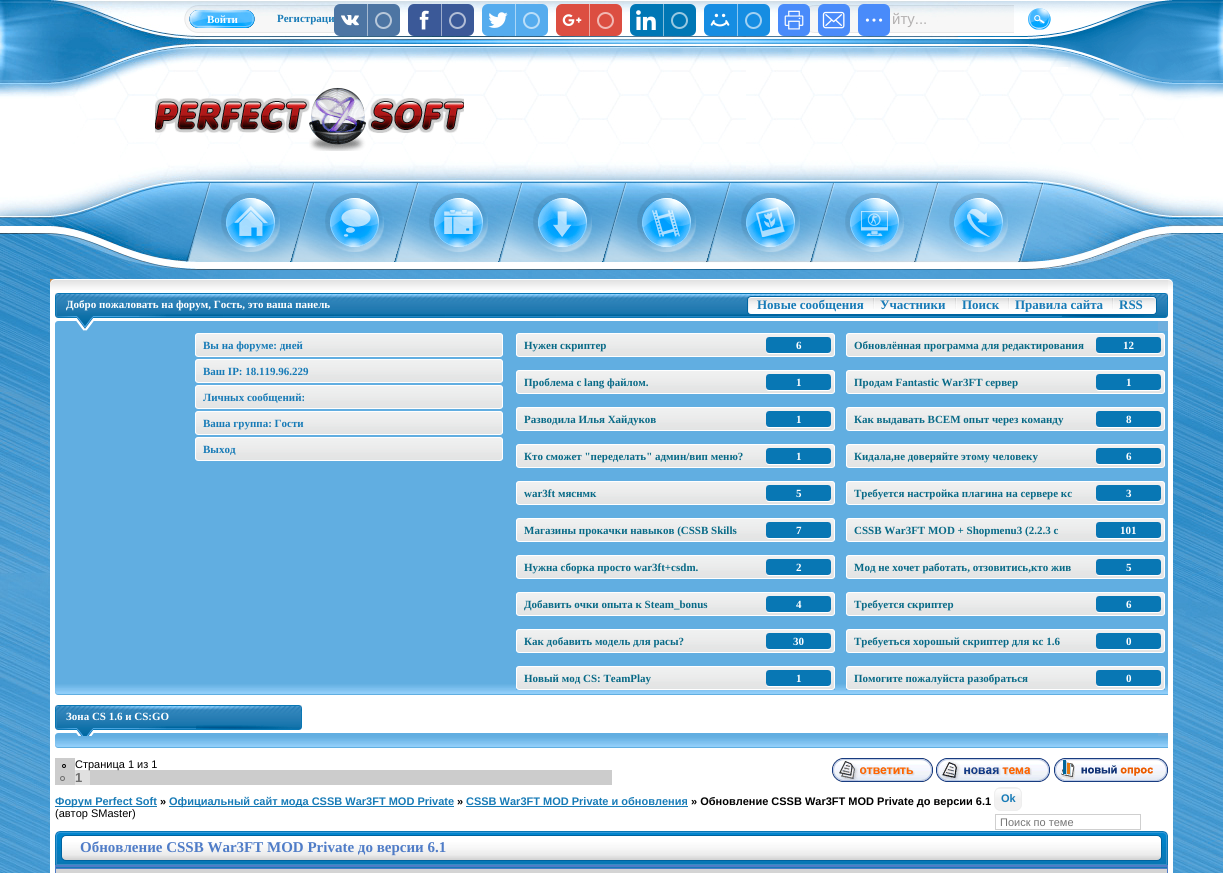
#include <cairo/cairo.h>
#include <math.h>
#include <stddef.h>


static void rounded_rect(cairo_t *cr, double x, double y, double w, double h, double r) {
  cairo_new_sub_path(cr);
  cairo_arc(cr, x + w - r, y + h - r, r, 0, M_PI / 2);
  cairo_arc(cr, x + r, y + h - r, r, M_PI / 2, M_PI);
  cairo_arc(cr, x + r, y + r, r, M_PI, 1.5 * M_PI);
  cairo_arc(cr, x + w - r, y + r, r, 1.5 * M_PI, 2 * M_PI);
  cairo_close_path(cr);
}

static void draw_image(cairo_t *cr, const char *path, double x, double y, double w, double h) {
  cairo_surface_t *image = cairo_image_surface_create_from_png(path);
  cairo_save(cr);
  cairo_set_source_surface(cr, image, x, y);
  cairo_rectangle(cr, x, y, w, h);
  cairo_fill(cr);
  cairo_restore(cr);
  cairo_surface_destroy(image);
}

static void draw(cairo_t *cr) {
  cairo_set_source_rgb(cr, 1, 1, 1);
  cairo_paint(cr);
  draw_image(cr, "images/14.png", 0, 0, 718, 270);
  draw_image(cr, "images/18.png", 184, 5, 153, 28);
  cairo_set_source_rgb(cr, 77 / 255.0, 117 / 255.0, 163 / 255.0);
  rounded_rect(cr, 334, 4, 66, 32, 6);
  cairo_fill(cr);
  draw_image(cr, "images/1.png", 341, 15, 18, 11);
  cairo_set_source_rgb(cr, 166 / 255.0, 186 / 255.0, 209 / 255.0);
  cairo_rectangle(cr, 367, 4, 1, 32);
  cairo_fill(cr);
  cairo_arc(cr, 383.5, 20.5, 7.5, 0, 2 * M_PI);
  cairo_set_source_rgb(cr, 184 / 255.0, 200 / 255.0, 218 / 255.0);
  cairo_stroke(cr);
  cairo_set_source_rgb(cr, 59 / 255.0, 89 / 255.0, 152 / 255.0);
  rounded_rect(cr, 408, 4, 66, 32, 6);
  cairo_fill(cr);
  draw_image(cr, "images/2.png", 419, 10, 10, 20);
  cairo_set_source_rgb(cr, 157 / 255.0, 172 / 255.0, 204 / 255.0);
  cairo_rectangle(cr, 441, 4, 1, 32);
  cairo_fill(cr);
  cairo_arc(cr, 457.5, 20.5, 7.5, 0, 2 * M_PI);
  cairo_set_source_rgb(cr, 177 / 255.0, 189 / 255.0, 214 / 255.0);
  cairo_stroke(cr);
  cairo_set_source_rgb(cr, 85 / 255.0, 172 / 255.0, 238 / 255.0);
  rounded_rect(cr, 482, 4, 66, 32, 6);
  cairo_fill(cr);
  draw_image(cr, "images/3.png", 488, 12, 20, 16);
  cairo_set_source_rgb(cr, 170 / 255.0, 214 / 255.0, 247 / 255.0);
  cairo_rectangle(cr, 515, 4, 1, 32);
  cairo_fill(cr);
  cairo_arc(cr, 531.5, 20.5, 7.5, 0, 2 * M_PI);
  cairo_set_source_rgb(cr, 187 / 255.0, 222 / 255.0, 248 / 255.0);
  cairo_stroke(cr);
  cairo_set_source_rgb(cr, 220 / 255.0, 78 / 255.0, 65 / 255.0);
  rounded_rect(cr, 556, 4, 66, 32, 6);
  cairo_fill(cr);
  draw_image(cr, "images/4.png", 562, 14, 20, 12);
  cairo_set_source_rgb(cr, 238 / 255.0, 167 / 255.0, 160 / 255.0);
  cairo_rectangle(cr, 589, 4, 1, 32);
  cairo_fill(cr);
  cairo_arc(cr, 605.5, 20.5, 7.5, 0, 2 * M_PI);
  cairo_set_source_rgb(cr, 241 / 255.0, 184 / 255.0, 179 / 255.0);
  cairo_stroke(cr);
  cairo_set_source_rgb(cr, 0, 119 / 255.0, 181 / 255.0);
  rounded_rect(cr, 630, 4, 66, 32, 6);
  cairo_fill(cr);
  draw_image(cr, "images/5.png", 636, 10, 20, 20);
  cairo_set_source_rgb(cr, 128 / 255.0, 187 / 255.0, 218 / 255.0);
  cairo_rectangle(cr, 663, 4, 1, 32);
  cairo_fill(cr);
  cairo_arc(cr, 679.5, 20.5, 7.5, 0, 2 * M_PI);
  cairo_set_source_rgb(cr, 153 / 255.0, 201 / 255.0, 225 / 255.0);
  cairo_stroke(cr);
  draw_image(cr, "images/13.png", 718, 1, 473, 182);
  cairo_set_source_rgb(cr, 22 / 255.0, 141 / 255.0, 226 / 255.0);
  rounded_rect(cr, 704, 4, 66, 32, 6);
  cairo_fill(cr);
  draw_image(cr, "images/6.png", 710, 13, 20, 14);
  cairo_set_source_rgb(cr, 139 / 255.0, 198 / 255.0, 241 / 255.0);
  cairo_rectangle(cr, 737, 4, 1, 32);
  cairo_fill(cr);
  cairo_arc(cr, 753.5, 20.5, 7.5, 0, 2 * M_PI);
  cairo_set_source_rgb(cr, 162 / 255.0, 209 / 255.0, 243 / 255.0);
  cairo_stroke(cr);
  draw_image(cr, "images/15.png", 958, 0, 265, 183);
  draw_image(cr, "images/20.png", 808, 5, 206, 28);
  cairo_set_source_rgb(cr, 73 / 255.0, 139 / 255.0, 250 / 255.0);
  rounded_rect(cr, 778, 4, 32, 32, 6);
  cairo_fill(cr);
  draw_image(cr, "images/7.png", 784, 10, 20, 20);
  rounded_rect(cr, 818, 4, 32, 32, 6);
  cairo_fill(cr);
  draw_image(cr, "images/8.png", 822, 11, 23, 18);
  rounded_rect(cr, 858, 4, 32, 32, 6);
  cairo_fill(cr);
  draw_image(cr, "images/9.png", 865, 18, 18, 4);
  draw_image(cr, "images/10.png", 575, 270, 73, 9);
  draw_image(cr, "images/11.png", 0, 270, 575, 603);
  draw_image(cr, "images/12.png", 648, 270, 575, 603);
  draw_image(cr, "images/16.png", 673, 39, 285, 5);
  draw_image(cr, "images/17.png", 673, 183, 550, 87);
  draw_image(cr, "images/19.png", 189, 10, 66, 18);
  draw_image(cr, "images/21.png", 1028, 8, 23, 22);
  draw_image(cr, "images/22.png", 155, 87, 309, 64);
  draw_image(cr, "images/23.png", 186, 183, 64, 79);
  draw_image(cr, "images/24.png", 250, 183, 12, 79);
  draw_image(cr, "images/25.png", 262, 183, 52, 79);
  draw_image(cr, "images/26.png", 221, 193, 59, 59);
  draw_image(cr, "images/27.png", 290, 183, 64, 79);
  draw_image(cr, "images/28.png", 354, 183, 12, 79);
  draw_image(cr, "images/29.png", 366, 183, 52, 79);
  draw_image(cr, "images/30.png", 325, 193, 59, 59);
  draw_image(cr, "images/31.png", 394, 183, 64, 79);
  draw_image(cr, "images/32.png", 458, 183, 12, 79);
  draw_image(cr, "images/33.png", 470, 183, 52, 79);
  draw_image(cr, "images/34.png", 429, 193, 59, 59);
  draw_image(cr, "images/35.png", 498, 183, 64, 79);
  draw_image(cr, "images/36.png", 562, 183, 12, 79);
  draw_image(cr, "images/37.png", 574, 183, 52, 79);
  draw_image(cr, "images/38.png", 533, 193, 59, 59);
  draw_image(cr, "images/39.png", 602, 183, 64, 79);
  draw_image(cr, "images/40.png", 666, 183, 12, 80);
  draw_image(cr, "images/41.png", 678, 183, 52, 80);
  draw_image(cr, "images/42.png", 637, 193, 59, 59);
  draw_image(cr, "images/43.png", 706, 183, 64, 80);
  draw_image(cr, "images/44.png", 770, 183, 12, 80);
  draw_image(cr, "images/45.png", 782, 183, 52, 80);
  draw_image(cr, "images/46.png", 741, 193, 59, 59);
  draw_image(cr, "images/47.png", 810, 183, 64, 80);
  draw_image(cr, "images/48.png", 874, 183, 12, 79);
  draw_image(cr, "images/49.png", 886, 183, 52, 80);
  draw_image(cr, "images/50.png", 845, 193, 59, 59);
  draw_image(cr, "images/51.png", 914, 183, 64, 80);
  draw_image(cr, "images/52.png", 978, 183, 12, 79);
  draw_image(cr, "images/53.png", 990, 183, 52, 79);
  draw_image(cr, "images/54.png", 949, 193, 59, 59);
  draw_image(cr, "images/55.png", 1019, 183, 29, 79);
  cairo_set_source_rgb(cr, 1, 1, 1);
  cairo_rectangle(cr, 50, 290, 1123, 583);
  cairo_fill(cr);
  draw_image(cr, "images/56.png", 50, 279, 1118, 11);
  draw_image(cr, "images/57.png", 1168, 279, 5, 11);
  draw_image(cr, "images/58.png", 166, 293, 1002, 28);
  draw_image(cr, "images/59.png", 55, 293, 111, 28);
  draw_image(cr, "images/60.png", 1062, 293, 106, 25);
  draw_image(cr, "images/61.png", 1152, 296, 5, 19);
  draw_image(cr, "images/62.png", 747, 296, 405, 19);
  draw_image(cr, "images/63.png", 873, 298, 2, 11);
  draw_image(cr, "images/64.png", 955, 298, 2, 11);
  draw_image(cr, "images/64.png", 1008, 298, 2, 11);
  draw_image(cr, "images/63.png", 1112, 298, 2, 11);
  cairo_set_source_rgb(cr, 97 / 255.0, 174 / 255.0, 225 / 255.0);
  cairo_rectangle(cr, 55, 321, 1113, 363);
  cairo_fill(cr);
  draw_image(cr, "images/65.png", 55, 321, 39, 10);
  cairo_set_source_rgb(cr, 112 / 255.0, 174 / 255.0, 221 / 255.0);
  cairo_rectangle(cr, 1158, 321, 10, 10);
  cairo_fill(cr);
  draw_image(cr, "images/66.png", 55, 684, 1113, 11);
  draw_image(cr, "images/67.png", 198, 333, 305, 24);
  draw_image(cr, "images/68.png", 195, 333, 3, 24);
  draw_image(cr, "images/67.png", 198, 359, 305, 24);
  draw_image(cr, "images/68.png", 195, 359, 3, 24);
  draw_image(cr, "images/67.png", 198, 385, 305, 24);
  draw_image(cr, "images/68.png", 195, 385, 3, 24);
  draw_image(cr, "images/67.png", 198, 411, 305, 24);
  draw_image(cr, "images/68.png", 195, 411, 3, 24);
  draw_image(cr, "images/67.png", 198, 437, 305, 24);
  draw_image(cr, "images/68.png", 195, 437, 3, 24);
  draw_image(cr, "images/69.png", 519, 333, 316, 24);
  draw_image(cr, "images/68.png", 516, 333, 3, 24);
  draw_image(cr, "images/70.png", 766, 337, 65, 17);
  draw_image(cr, "images/69.png", 849, 333, 316, 24);
  draw_image(cr, "images/68.png", 846, 333, 3, 24);
  draw_image(cr, "images/70.png", 1096, 337, 65, 17);
  draw_image(cr, "images/69.png", 519, 370, 316, 24);
  draw_image(cr, "images/68.png", 516, 370, 3, 24);
  draw_image(cr, "images/70.png", 766, 374, 65, 17);
  draw_image(cr, "images/69.png", 849, 370, 316, 24);
  draw_image(cr, "images/68.png", 846, 370, 3, 24);
  draw_image(cr, "images/70.png", 1096, 374, 65, 17);
  draw_image(cr, "images/69.png", 519, 407, 316, 24);
  draw_image(cr, "images/68.png", 516, 407, 3, 24);
  draw_image(cr, "images/70.png", 766, 411, 65, 17);
  draw_image(cr, "images/69.png", 849, 407, 316, 24);
  draw_image(cr, "images/68.png", 846, 407, 3, 24);
  draw_image(cr, "images/70.png", 1096, 411, 65, 17);
  draw_image(cr, "images/69.png", 519, 444, 316, 24);
  draw_image(cr, "images/68.png", 516, 444, 3, 24);
  draw_image(cr, "images/70.png", 766, 448, 65, 17);
  draw_image(cr, "images/69.png", 849, 444, 316, 24);
  draw_image(cr, "images/68.png", 846, 444, 3, 24);
  draw_image(cr, "images/70.png", 1096, 448, 65, 17);
  draw_image(cr, "images/69.png", 519, 481, 316, 24);
  draw_image(cr, "images/68.png", 516, 481, 3, 24);
  draw_image(cr, "images/70.png", 766, 485, 65, 17);
  draw_image(cr, "images/69.png", 849, 481, 316, 24);
  draw_image(cr, "images/68.png", 846, 481, 3, 24);
  draw_image(cr, "images/70.png", 1096, 485, 65, 17);
  draw_image(cr, "images/69.png", 519, 518, 316, 24);
  draw_image(cr, "images/68.png", 516, 518, 3, 24);
  draw_image(cr, "images/70.png", 766, 522, 65, 17);
  draw_image(cr, "images/69.png", 849, 518, 316, 24);
  draw_image(cr, "images/68.png", 846, 518, 3, 24);
  draw_image(cr, "images/70.png", 1096, 522, 65, 17);
  draw_image(cr, "images/69.png", 519, 555, 316, 24);
  draw_image(cr, "images/68.png", 516, 555, 3, 24);
  draw_image(cr, "images/70.png", 766, 559, 65, 17);
  draw_image(cr, "images/69.png", 849, 555, 316, 24);
  draw_image(cr, "images/68.png", 846, 555, 3, 24);
  draw_image(cr, "images/70.png", 1096, 559, 65, 17);
  draw_image(cr, "images/69.png", 519, 592, 316, 24);
  draw_image(cr, "images/68.png", 516, 592, 3, 24);
  draw_image(cr, "images/70.png", 766, 596, 65, 17);
  draw_image(cr, "images/69.png", 849, 592, 316, 24);
  draw_image(cr, "images/68.png", 846, 592, 3, 24);
  draw_image(cr, "images/70.png", 1096, 596, 65, 17);
  draw_image(cr, "images/69.png", 519, 629, 316, 24);
  draw_image(cr, "images/68.png", 516, 629, 3, 24);
  draw_image(cr, "images/70.png", 766, 633, 65, 17);
  draw_image(cr, "images/69.png", 849, 629, 316, 24);
  draw_image(cr, "images/68.png", 846, 629, 3, 24);
  draw_image(cr, "images/70.png", 1096, 633, 65, 17);
  draw_image(cr, "images/69.png", 519, 666, 316, 24);
  draw_image(cr, "images/68.png", 516, 666, 3, 24);
  draw_image(cr, "images/70.png", 766, 670, 65, 17);
  draw_image(cr, "images/69.png", 849, 666, 316, 24);
  draw_image(cr, "images/68.png", 846, 666, 3, 24);
  draw_image(cr, "images/70.png", 1096, 670, 65, 17);
  draw_image(cr, "images/71.png", 166, 705, 136, 28);
  draw_image(cr, "images/59.png", 55, 705, 111, 28);
  draw_image(cr, "images/60.png", 196, 705, 106, 25);
  cairo_set_source_rgb(cr, 97 / 255.0, 174 / 255.0, 225 / 255.0);
  cairo_rectangle(cr, 94, 733, 1064, 3);
  cairo_fill(cr);
  draw_image(cr, "images/72.png", 55, 733, 39, 3);
  cairo_set_source_rgb(cr, 112 / 255.0, 174 / 255.0, 221 / 255.0);
  cairo_rectangle(cr, 1158, 733, 10, 3);
  cairo_fill(cr);
  draw_image(cr, "images/73.png", 55, 736, 1113, 12);
  cairo_set_source_rgb(cr, 204 / 255.0, 204 / 255.0, 204 / 255.0);
  cairo_rectangle(cr, 55, 758, 557, 27);
  cairo_fill(cr);
  cairo_set_source_rgb(cr, 1, 1, 1);
  cairo_rectangle(cr, 75, 758, 537, 12);
  cairo_fill(cr);
  cairo_arc(cr, 64, 766, 1.5, 0, 2 * M_PI);
  cairo_set_source_rgb(cr, 0, 0, 0);
  cairo_set_line_width(cr, 1);
  cairo_stroke(cr);
  cairo_set_source_rgb(cr, 224 / 255.0, 224 / 255.0, 224 / 255.0);
  cairo_rectangle(cr, 75, 770, 15, 15);
  cairo_fill(cr);
  cairo_arc(cr, 62.5, 778.5, 2, 0, 2 * M_PI);
  cairo_set_source_rgb(cr, 110 / 255.0, 110 / 255.0, 110 / 255.0);
  cairo_stroke(cr);
  draw_image(cr, "images/74.png", 832, 758, 101, 24);
  draw_image(cr, "images/75.png", 936, 758, 114, 24);
  draw_image(cr, "images/76.png", 1054, 758, 114, 24);
  cairo_set_source_rgb(cr, 23 / 255.0, 123 / 255.0, 183 / 255.0);
  cairo_rectangle(cr, 55, 806, 102, 1);
  cairo_fill(cr);
  cairo_rectangle(cr, 169, 806, 285, 1);
  cairo_fill(cr);
  cairo_rectangle(cr, 466, 806, 222, 1);
  cairo_fill(cr);
  draw_image(cr, "images/77.png", 994, 788, 28, 23);
  rounded_rect(cr, 994.5, 787.5, 27, 23, 6.5);
  cairo_set_source_rgb(cr, 238 / 255.0, 238 / 255.0, 238 / 255.0);
  cairo_stroke(cr);
  cairo_rectangle(cr, 995.5, 814.5, 145, 15);
  cairo_set_source_rgb(cr, 207 / 255.0, 207 / 255.0, 207 / 255.0);
  cairo_stroke(cr);
  draw_image(cr, "images/78.png", 55, 831, 1102, 34);
  draw_image(cr, "images/79.png", 1157, 831, 11, 34);
  cairo_set_source_rgb(cr, 79 / 255.0, 124 / 255.0, 199 / 255.0);
  cairo_rectangle(cr, 55, 865, 1113, 8);
  cairo_fill(cr);
  cairo_set_source_rgb(cr, 23 / 255.0, 123 / 255.0, 183 / 255.0);
  cairo_rectangle(cr, 56, 867, 1111, 1);
  cairo_fill(cr);
  cairo_set_source_rgb(cr, 212 / 255.0, 212 / 255.0, 212 / 255.0);
  cairo_rectangle(cr, 56, 869, 1111, 4);
  cairo_fill(cr);
  cairo_select_font_face(cr, "Liberation Serif", CAIRO_FONT_SLANT_NORMAL, CAIRO_FONT_WEIGHT_BOLD);
  cairo_set_font_size(cr, 11);
  cairo_set_source_rgb(cr, 1, 1, 1);
  cairo_move_to(cr, 207, 23);
  cairo_show_text(cr, "Войти");
  cairo_set_source_rgb(cr, 23 / 255.0, 123 / 255.0, 183 / 255.0);
  cairo_move_to(cr, 277, 22);
  cairo_show_text(cr, "Регистраци");
  cairo_select_font_face(cr, "Liberation Sans", CAIRO_FONT_SLANT_NORMAL, CAIRO_FONT_WEIGHT_NORMAL);
  cairo_set_font_size(cr, 15);
  cairo_set_source_rgb(cr, 179 / 255.0, 177 / 255.0, 177 / 255.0);
  cairo_move_to(cr, 892, 24);
  cairo_show_text(cr, "йту...");
  cairo_select_font_face(cr, "Liberation Serif", CAIRO_FONT_SLANT_NORMAL, CAIRO_FONT_WEIGHT_BOLD);
  cairo_set_font_size(cr, 11);
  cairo_set_source_rgb(cr, 1, 1, 1);
  cairo_move_to(cr, 66, 308);
  cairo_show_text(cr, "Добро пожаловать на форум, Гость, это ваша панель");
  cairo_set_font_size(cr, 13);
  cairo_set_source_rgb(cr, 23 / 255.0, 123 / 255.0, 183 / 255.0);
  cairo_move_to(cr, 757, 309);
  cairo_show_text(cr, "Новые сообщения");
  cairo_move_to(cr, 880, 309);
  cairo_show_text(cr, "Участники");
  cairo_move_to(cr, 962, 309);
  cairo_show_text(cr, "Поиск");
  cairo_move_to(cr, 1015, 309);
  cairo_show_text(cr, "Правила сайта");
  cairo_move_to(cr, 1119, 309);
  cairo_show_text(cr, "RSS");
  cairo_set_font_size(cr, 11);
  cairo_move_to(cr, 203, 349);
  cairo_show_text(cr, "Вы на форуме: дней");
  cairo_move_to(cr, 203, 375);
  cairo_show_text(cr, "Ваш IP: 18.119.96.229");
  cairo_move_to(cr, 203, 401);
  cairo_show_text(cr, "Личных сообщений:");
  cairo_move_to(cr, 203, 427);
  cairo_show_text(cr, "Ваша группа: Гости");
  cairo_move_to(cr, 203, 453);
  cairo_show_text(cr, "Выход");
  cairo_set_source_rgb(cr, 8 / 255.0, 106 / 255.0, 135 / 255.0);
  cairo_move_to(cr, 524, 349);
  cairo_show_text(cr, "Нужен скриптер");
  cairo_set_source_rgb(cr, 1, 1, 1);
  cairo_move_to(cr, 796, 349);
  cairo_show_text(cr, "6");
  cairo_set_source_rgb(cr, 8 / 255.0, 106 / 255.0, 135 / 255.0);
  cairo_move_to(cr, 854, 349);
  cairo_show_text(cr, "Обновлённая программа для редактирования");
  cairo_set_source_rgb(cr, 1, 1, 1);
  cairo_move_to(cr, 1123, 349);
  cairo_show_text(cr, "12");
  cairo_set_source_rgb(cr, 8 / 255.0, 106 / 255.0, 135 / 255.0);
  cairo_move_to(cr, 524, 386);
  cairo_show_text(cr, "Проблема с lang файлом.");
  cairo_set_source_rgb(cr, 1, 1, 1);
  cairo_move_to(cr, 796, 386);
  cairo_show_text(cr, "1");
  cairo_set_source_rgb(cr, 8 / 255.0, 106 / 255.0, 135 / 255.0);
  cairo_move_to(cr, 854, 386);
  cairo_show_text(cr, "Продам Fantastic War3FT сервер");
  cairo_set_source_rgb(cr, 1, 1, 1);
  cairo_move_to(cr, 1126, 386);
  cairo_show_text(cr, "1");
  cairo_set_source_rgb(cr, 8 / 255.0, 106 / 255.0, 135 / 255.0);
  cairo_move_to(cr, 524, 423);
  cairo_show_text(cr, "Разводила Илья Хайдуков");
  cairo_set_source_rgb(cr, 1, 1, 1);
  cairo_move_to(cr, 796, 423);
  cairo_show_text(cr, "1");
  cairo_set_source_rgb(cr, 8 / 255.0, 106 / 255.0, 135 / 255.0);
  cairo_move_to(cr, 854, 423);
  cairo_show_text(cr, "Как выдавать ВСЕМ опыт через команду");
  cairo_set_source_rgb(cr, 1, 1, 1);
  cairo_move_to(cr, 1126, 423);
  cairo_show_text(cr, "8");
  cairo_set_source_rgb(cr, 8 / 255.0, 106 / 255.0, 135 / 255.0);
  cairo_move_to(cr, 524, 460);
  cairo_show_text(cr, "Кто сможет \"переделать\" админ/вип меню?");
  cairo_set_source_rgb(cr, 1, 1, 1);
  cairo_move_to(cr, 796, 460);
  cairo_show_text(cr, "1");
  cairo_set_source_rgb(cr, 8 / 255.0, 106 / 255.0, 135 / 255.0);
  cairo_move_to(cr, 854, 460);
  cairo_show_text(cr, "Кидала,не доверяйте этому человеку");
  cairo_set_source_rgb(cr, 1, 1, 1);
  cairo_move_to(cr, 1126, 460);
  cairo_show_text(cr, "6");
  cairo_set_source_rgb(cr, 8 / 255.0, 106 / 255.0, 135 / 255.0);
  cairo_move_to(cr, 524, 497);
  cairo_show_text(cr, "war3ft мяснмк");
  cairo_set_source_rgb(cr, 1, 1, 1);
  cairo_move_to(cr, 796, 497);
  cairo_show_text(cr, "5");
  cairo_set_source_rgb(cr, 8 / 255.0, 106 / 255.0, 135 / 255.0);
  cairo_move_to(cr, 854, 497);
  cairo_show_text(cr, "Требуется настройка плагина на сервере кс");
  cairo_set_source_rgb(cr, 1, 1, 1);
  cairo_move_to(cr, 1126, 497);
  cairo_show_text(cr, "3");
  cairo_set_source_rgb(cr, 8 / 255.0, 106 / 255.0, 135 / 255.0);
  cairo_move_to(cr, 524, 534);
  cairo_show_text(cr, "Магазины прокачки навыков (CSSB Skills");
  cairo_set_source_rgb(cr, 1, 1, 1);
  cairo_move_to(cr, 796, 534);
  cairo_show_text(cr, "7");
  cairo_set_source_rgb(cr, 8 / 255.0, 106 / 255.0, 135 / 255.0);
  cairo_move_to(cr, 854, 534);
  cairo_show_text(cr, "CSSB War3FT MOD + Shopmenu3 (2.2.3 c");
  cairo_set_source_rgb(cr, 1, 1, 1);
  cairo_move_to(cr, 1120, 534);
  cairo_show_text(cr, "101");
  cairo_set_source_rgb(cr, 8 / 255.0, 106 / 255.0, 135 / 255.0);
  cairo_move_to(cr, 524, 571);
  cairo_show_text(cr, "Нужна сборка просто war3ft+csdm.");
  cairo_set_source_rgb(cr, 1, 1, 1);
  cairo_move_to(cr, 796, 571);
  cairo_show_text(cr, "2");
  cairo_set_source_rgb(cr, 8 / 255.0, 106 / 255.0, 135 / 255.0);
  cairo_move_to(cr, 854, 571);
  cairo_show_text(cr, "Мод не хочет работать, отзовитись,кто жив");
  cairo_set_source_rgb(cr, 1, 1, 1);
  cairo_move_to(cr, 1126, 571);
  cairo_show_text(cr, "5");
  cairo_set_source_rgb(cr, 8 / 255.0, 106 / 255.0, 135 / 255.0);
  cairo_move_to(cr, 524, 608);
  cairo_show_text(cr, "Добавить очки опыта к Steam_bonus");
  cairo_set_source_rgb(cr, 1, 1, 1);
  cairo_move_to(cr, 796, 608);
  cairo_show_text(cr, "4");
  cairo_set_source_rgb(cr, 8 / 255.0, 106 / 255.0, 135 / 255.0);
  cairo_move_to(cr, 854, 608);
  cairo_show_text(cr, "Требуется скриптер");
  cairo_set_source_rgb(cr, 1, 1, 1);
  cairo_move_to(cr, 1126, 608);
  cairo_show_text(cr, "6");
  cairo_set_source_rgb(cr, 8 / 255.0, 106 / 255.0, 135 / 255.0);
  cairo_move_to(cr, 524, 645);
  cairo_show_text(cr, "Как добавить модель для расы?");
  cairo_set_source_rgb(cr, 1, 1, 1);
  cairo_move_to(cr, 793, 645);
  cairo_show_text(cr, "30");
  cairo_set_source_rgb(cr, 8 / 255.0, 106 / 255.0, 135 / 255.0);
  cairo_move_to(cr, 854, 645);
  cairo_show_text(cr, "Требуеться хорошый скриптер для кс 1.6");
  cairo_set_source_rgb(cr, 1, 1, 1);
  cairo_move_to(cr, 1126, 645);
  cairo_show_text(cr, "0");
  cairo_set_source_rgb(cr, 8 / 255.0, 106 / 255.0, 135 / 255.0);
  cairo_move_to(cr, 524, 682);
  cairo_show_text(cr, "Новый мод CS: TeamPlay");
  cairo_set_source_rgb(cr, 1, 1, 1);
  cairo_move_to(cr, 796, 682);
  cairo_show_text(cr, "1");
  cairo_set_source_rgb(cr, 8 / 255.0, 106 / 255.0, 135 / 255.0);
  cairo_move_to(cr, 854, 682);
  cairo_show_text(cr, "Помогите пожалуйста разобраться");
  cairo_set_source_rgb(cr, 1, 1, 1);
  cairo_move_to(cr, 1126, 682);
  cairo_show_text(cr, "0");
  cairo_move_to(cr, 66, 720);
  cairo_show_text(cr, "Зона CS 1.6 и CS:GO");
  cairo_select_font_face(cr, "Liberation Sans", CAIRO_FONT_SLANT_NORMAL, CAIRO_FONT_WEIGHT_NORMAL);
  cairo_set_source_rgb(cr, 0, 0, 0);
  cairo_move_to(cr, 75, 768);
  cairo_show_text(cr, "Страница 1 из 1");
  cairo_select_font_face(cr, "Liberation Sans", CAIRO_FONT_SLANT_NORMAL, CAIRO_FONT_WEIGHT_BOLD);
  cairo_set_font_size(cr, 13);
  cairo_set_source_rgb(cr, 110 / 255.0, 110 / 255.0, 110 / 255.0);
  cairo_move_to(cr, 75, 782);
  cairo_show_text(cr, "1");
  cairo_set_font_size(cr, 11);
  cairo_set_source_rgb(cr, 23 / 255.0, 123 / 255.0, 183 / 255.0);
  cairo_move_to(cr, 55, 805);
  cairo_show_text(cr, "Форум Perfect Soft");
  cairo_set_source_rgb(cr, 0, 0, 0);
  cairo_move_to(cr, 160, 805);
  cairo_show_text(cr, "»");
  cairo_set_source_rgb(cr, 23 / 255.0, 123 / 255.0, 183 / 255.0);
  cairo_move_to(cr, 169, 805);
  cairo_show_text(cr, "Официальный сайт мода CSSB War3FT MOD Private");
  cairo_set_source_rgb(cr, 0, 0, 0);
  cairo_move_to(cr, 457, 805);
  cairo_show_text(cr, "»");
  cairo_set_source_rgb(cr, 23 / 255.0, 123 / 255.0, 183 / 255.0);
  cairo_move_to(cr, 466, 805);
  cairo_show_text(cr, "CSSB War3FT MOD Private и обновления");
  cairo_set_source_rgb(cr, 0, 0, 0);
  cairo_move_to(cr, 691, 805);
  cairo_show_text(cr, "» Обновление CSSB War3FT MOD Private до версии 6.1");
  cairo_select_font_face(cr, "Liberation Sans", CAIRO_FONT_SLANT_NORMAL, CAIRO_FONT_WEIGHT_NORMAL);
  cairo_move_to(cr, 55, 817);
  cairo_show_text(cr, "(автор SMaster)");
  cairo_select_font_face(cr, "Liberation Sans", CAIRO_FONT_SLANT_NORMAL, CAIRO_FONT_WEIGHT_BOLD);
  cairo_set_source_rgb(cr, 23 / 255.0, 123 / 255.0, 183 / 255.0);
  cairo_move_to(cr, 1001, 802);
  cairo_show_text(cr, "Ok");
  cairo_select_font_face(cr, "Liberation Sans", CAIRO_FONT_SLANT_NORMAL, CAIRO_FONT_WEIGHT_NORMAL);
  cairo_set_source_rgb(cr, 117 / 255.0, 117 / 255.0, 117 / 255.0);
  cairo_move_to(cr, 1000, 826);
  cairo_show_text(cr, "Поиск по теме");
  cairo_select_font_face(cr, "Liberation Serif", CAIRO_FONT_SLANT_NORMAL, CAIRO_FONT_WEIGHT_BOLD);
  cairo_set_font_size(cr, 15);
  cairo_set_source_rgb(cr, 79 / 255.0, 124 / 255.0, 199 / 255.0);
  cairo_move_to(cr, 80, 852);
  cairo_show_text(cr, "Обновление CSSB War3FT MOD Private до версии 6.1");
}

int main(void) {
  cairo_surface_t *surface = cairo_image_surface_create(CAIRO_FORMAT_RGB24, 1223, 873);
  cairo_t *cr = cairo_create(surface);
  cairo_font_options_t *options = cairo_font_options_create();
  cairo_font_options_set_hint_metrics(options, CAIRO_HINT_METRICS_OFF);
  cairo_font_options_set_hint_style(options, CAIRO_HINT_STYLE_NONE);
  cairo_set_font_options(cr, options);
  cairo_set_miter_limit(cr, 4);
  draw(cr);
  cairo_surface_write_to_png(surface, "out.png");
  cairo_font_options_destroy(options);
  cairo_destroy(cr);
  cairo_surface_destroy(surface);
  return 0;
}
